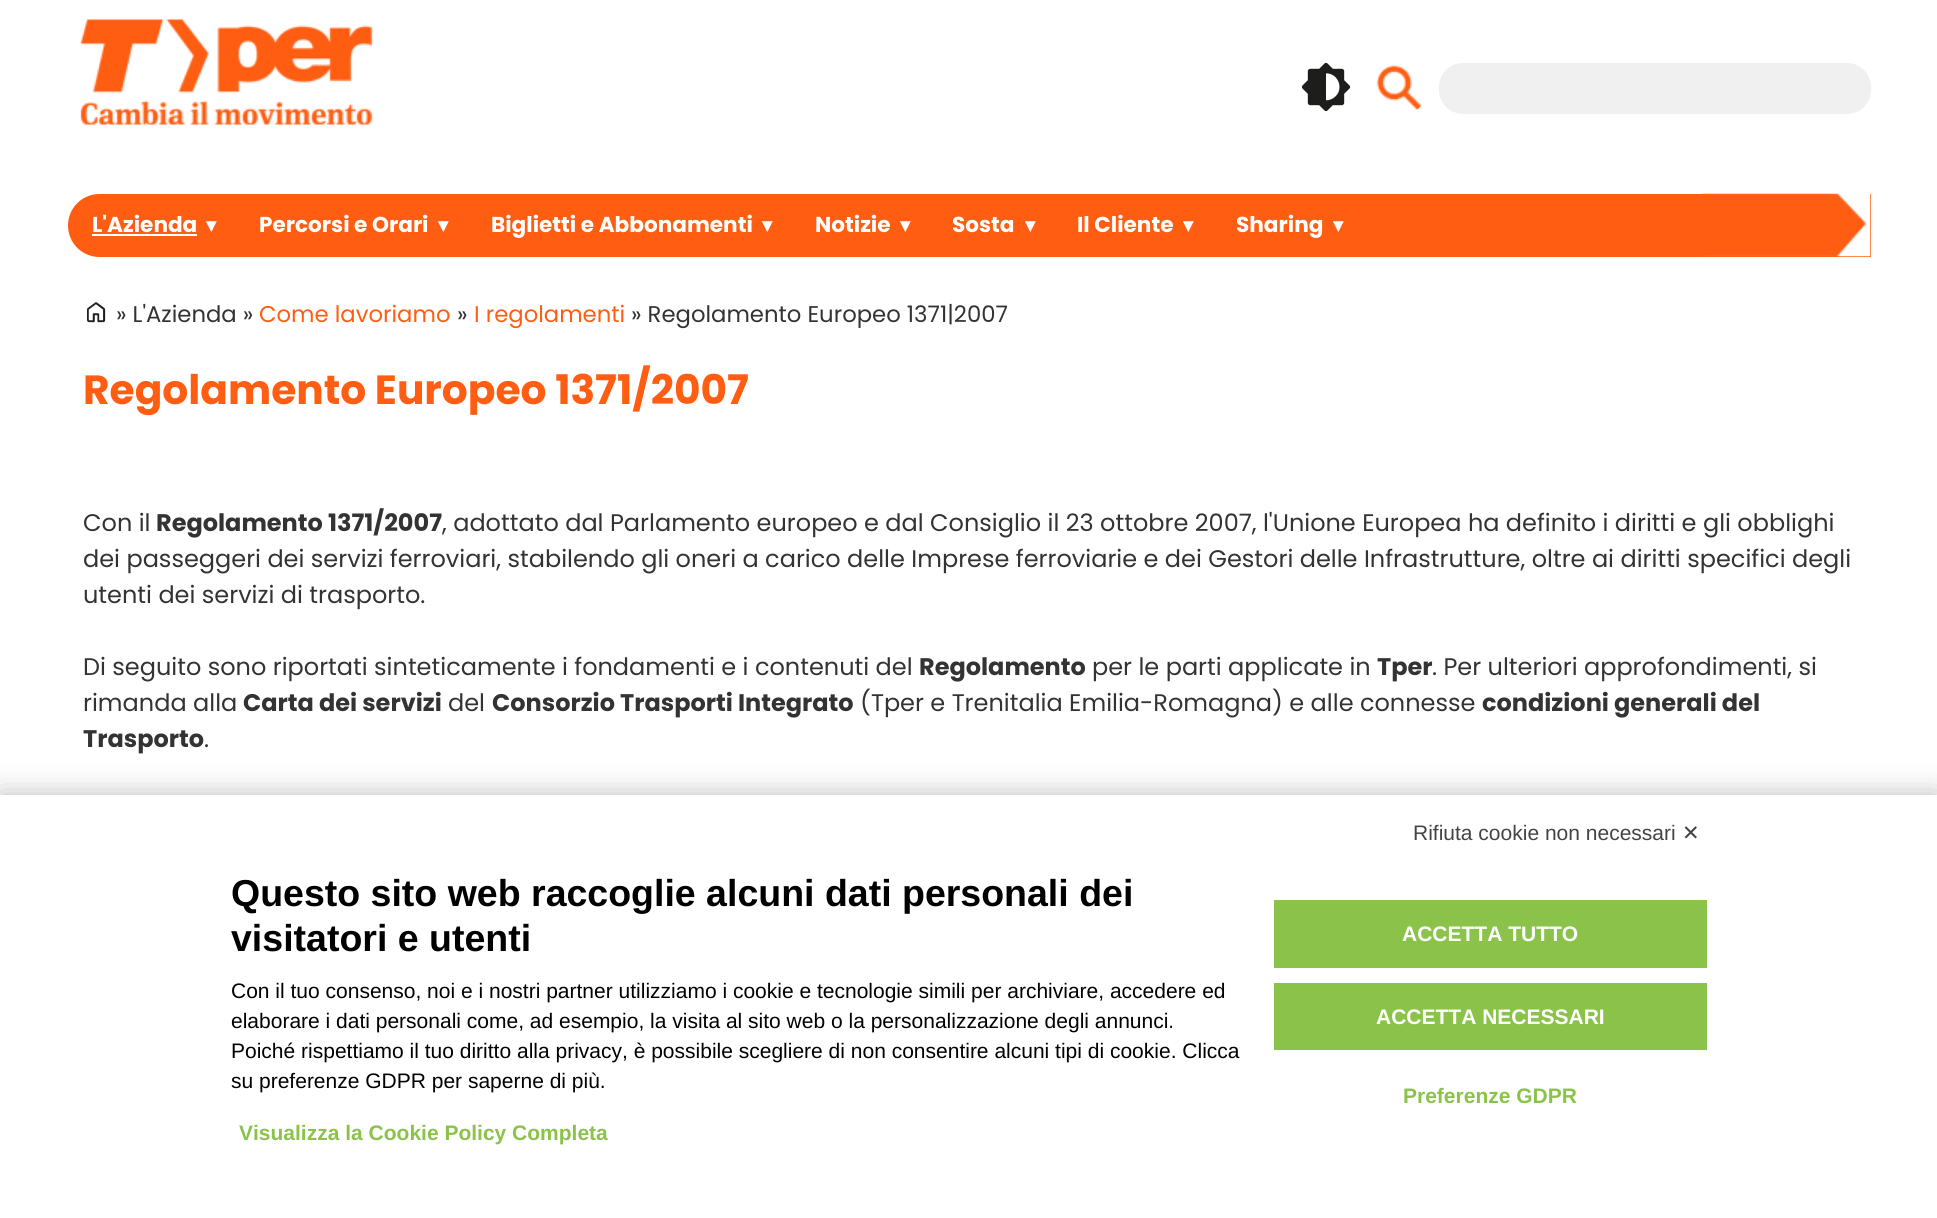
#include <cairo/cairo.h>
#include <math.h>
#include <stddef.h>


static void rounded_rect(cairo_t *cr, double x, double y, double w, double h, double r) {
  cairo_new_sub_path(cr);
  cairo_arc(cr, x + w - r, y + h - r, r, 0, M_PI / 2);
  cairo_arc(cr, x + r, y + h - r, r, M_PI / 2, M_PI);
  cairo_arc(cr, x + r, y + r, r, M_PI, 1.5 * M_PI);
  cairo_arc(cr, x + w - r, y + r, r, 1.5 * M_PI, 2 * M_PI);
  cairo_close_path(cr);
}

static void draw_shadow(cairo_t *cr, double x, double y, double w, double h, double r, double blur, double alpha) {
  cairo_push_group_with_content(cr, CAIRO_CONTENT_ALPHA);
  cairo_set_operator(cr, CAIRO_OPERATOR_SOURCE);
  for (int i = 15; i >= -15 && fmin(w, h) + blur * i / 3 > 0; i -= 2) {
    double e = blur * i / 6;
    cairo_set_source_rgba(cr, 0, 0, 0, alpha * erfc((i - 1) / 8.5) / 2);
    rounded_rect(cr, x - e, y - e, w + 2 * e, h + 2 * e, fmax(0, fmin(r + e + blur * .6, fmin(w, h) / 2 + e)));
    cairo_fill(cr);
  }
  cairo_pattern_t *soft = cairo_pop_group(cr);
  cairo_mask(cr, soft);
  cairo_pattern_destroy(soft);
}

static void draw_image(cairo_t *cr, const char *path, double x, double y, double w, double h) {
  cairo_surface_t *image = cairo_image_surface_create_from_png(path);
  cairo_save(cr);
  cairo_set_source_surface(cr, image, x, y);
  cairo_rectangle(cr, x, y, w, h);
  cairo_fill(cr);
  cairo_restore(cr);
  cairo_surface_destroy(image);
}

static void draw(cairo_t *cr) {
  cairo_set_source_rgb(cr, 1, 1, 1);
  cairo_paint(cr);
  draw_image(cr, "images/1.png", 1301, 62, 50, 50);
  draw_image(cr, "images/2.png", 80, 19, 293, 106);
  draw_image(cr, "images/3.png", 1376, 65, 46, 45);
  cairo_set_source_rgb(cr, 240 / 255.0, 240 / 255.0, 240 / 255.0);
  rounded_rect(cr, 1439, 63, 432, 51, 24);
  cairo_fill(cr);
  cairo_set_source_rgb(cr, 1, 93 / 255.0, 18 / 255.0);
  cairo_new_path(cr);
  cairo_move_to(cr, 99.5, 194);
  cairo_line_to(cr, 1871, 194);
  cairo_line_to(cr, 1871, 257);
  cairo_line_to(cr, 99.5, 257);
  cairo_curve_to(cr, 82, 257, 68, 243, 68, 225.5);
  cairo_curve_to(cr, 68, 208, 82, 194, 99.5, 194);
  cairo_close_path(cr);
  cairo_fill(cr);
  draw_image(cr, "images/4.png", 1702, 193, 169, 64);
  cairo_set_source_rgb(cr, 1, 1, 1);
  cairo_rectangle(cr, 92, 234, 105, 2);
  cairo_fill(cr);
  draw_image(cr, "images/5.png", 87, 302, 19, 21);
  cairo_set_source_rgb(cr, 0, 0, 0);
  draw_shadow(cr, 0, 795, 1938, 423, 0, 15, 0.27);
  cairo_set_source_rgb(cr, 1, 1, 1);
  cairo_rectangle(cr, 0, 795, 1937, 423);
  cairo_fill(cr);
  cairo_set_source_rgb(cr, 139 / 255.0, 195 / 255.0, 74 / 255.0);
  cairo_rectangle(cr, 1274, 900, 433, 68);
  cairo_fill(cr);
  cairo_rectangle(cr, 1274, 983, 433, 67);
  cairo_fill(cr);
  cairo_select_font_face(cr, "Poppins", CAIRO_FONT_SLANT_NORMAL, CAIRO_FONT_WEIGHT_BOLD);
  cairo_set_font_size(cr, 21.6);
  cairo_set_source_rgb(cr, 1, 1, 1);
  cairo_move_to(cr, 92, 232);
  cairo_show_text(cr, "L'Azienda");
  cairo_select_font_face(cr, "DejaVu Sans", CAIRO_FONT_SLANT_NORMAL, CAIRO_FONT_WEIGHT_BOLD);
  cairo_set_font_size(cr, 20);
  cairo_move_to(cr, 206, 232);
  cairo_show_text(cr, "▾");
  cairo_select_font_face(cr, "Poppins", CAIRO_FONT_SLANT_NORMAL, CAIRO_FONT_WEIGHT_BOLD);
  cairo_set_font_size(cr, 21.6);
  cairo_move_to(cr, 259, 232);
  cairo_show_text(cr, "Percorsi e Orari");
  cairo_select_font_face(cr, "DejaVu Sans", CAIRO_FONT_SLANT_NORMAL, CAIRO_FONT_WEIGHT_BOLD);
  cairo_set_font_size(cr, 20);
  cairo_move_to(cr, 438, 232);
  cairo_show_text(cr, "▾");
  cairo_select_font_face(cr, "Poppins", CAIRO_FONT_SLANT_NORMAL, CAIRO_FONT_WEIGHT_BOLD);
  cairo_set_font_size(cr, 21.6);
  cairo_move_to(cr, 491, 232);
  cairo_show_text(cr, "Biglietti e Abbonamenti");
  cairo_select_font_face(cr, "DejaVu Sans", CAIRO_FONT_SLANT_NORMAL, CAIRO_FONT_WEIGHT_BOLD);
  cairo_set_font_size(cr, 20);
  cairo_move_to(cr, 762, 232);
  cairo_show_text(cr, "▾");
  cairo_select_font_face(cr, "Poppins", CAIRO_FONT_SLANT_NORMAL, CAIRO_FONT_WEIGHT_BOLD);
  cairo_set_font_size(cr, 21.6);
  cairo_move_to(cr, 815, 232);
  cairo_show_text(cr, "Notizie");
  cairo_select_font_face(cr, "DejaVu Sans", CAIRO_FONT_SLANT_NORMAL, CAIRO_FONT_WEIGHT_BOLD);
  cairo_set_font_size(cr, 20);
  cairo_move_to(cr, 900, 232);
  cairo_show_text(cr, "▾");
  cairo_select_font_face(cr, "Poppins", CAIRO_FONT_SLANT_NORMAL, CAIRO_FONT_WEIGHT_BOLD);
  cairo_set_font_size(cr, 21.6);
  cairo_move_to(cr, 952, 232);
  cairo_show_text(cr, "Sosta");
  cairo_select_font_face(cr, "DejaVu Sans", CAIRO_FONT_SLANT_NORMAL, CAIRO_FONT_WEIGHT_BOLD);
  cairo_set_font_size(cr, 20);
  cairo_move_to(cr, 1025, 232);
  cairo_show_text(cr, "▾");
  cairo_select_font_face(cr, "Poppins", CAIRO_FONT_SLANT_NORMAL, CAIRO_FONT_WEIGHT_BOLD);
  cairo_set_font_size(cr, 21.6);
  cairo_move_to(cr, 1077, 232);
  cairo_show_text(cr, "Il Cliente");
  cairo_select_font_face(cr, "DejaVu Sans", CAIRO_FONT_SLANT_NORMAL, CAIRO_FONT_WEIGHT_BOLD);
  cairo_set_font_size(cr, 20);
  cairo_move_to(cr, 1183, 232);
  cairo_show_text(cr, "▾");
  cairo_select_font_face(cr, "Poppins", CAIRO_FONT_SLANT_NORMAL, CAIRO_FONT_WEIGHT_BOLD);
  cairo_set_font_size(cr, 21.6);
  cairo_move_to(cr, 1236, 232);
  cairo_show_text(cr, "Sharing");
  cairo_select_font_face(cr, "DejaVu Sans", CAIRO_FONT_SLANT_NORMAL, CAIRO_FONT_WEIGHT_BOLD);
  cairo_set_font_size(cr, 20);
  cairo_move_to(cr, 1333, 232);
  cairo_show_text(cr, "▾");
  cairo_select_font_face(cr, "Poppins", CAIRO_FONT_SLANT_NORMAL, CAIRO_FONT_WEIGHT_NORMAL);
  cairo_set_font_size(cr, 22.75);
  cairo_set_source_rgb(cr, 51 / 255.0, 51 / 255.0, 51 / 255.0);
  cairo_move_to(cr, 116, 322);
  cairo_show_text(cr, "» L'Azienda »");
  cairo_set_source_rgb(cr, 1, 93 / 255.0, 18 / 255.0);
  cairo_move_to(cr, 259, 322);
  cairo_show_text(cr, "Come lavoriamo");
  cairo_set_source_rgb(cr, 51 / 255.0, 51 / 255.0, 51 / 255.0);
  cairo_move_to(cr, 457, 322);
  cairo_show_text(cr, "»");
  cairo_set_source_rgb(cr, 1, 93 / 255.0, 18 / 255.0);
  cairo_move_to(cr, 474, 322);
  cairo_show_text(cr, "I regolamenti");
  cairo_set_source_rgb(cr, 51 / 255.0, 51 / 255.0, 51 / 255.0);
  cairo_move_to(cr, 631, 322);
  cairo_show_text(cr, "» Regolamento Europeo 1371|2007");
  cairo_select_font_face(cr, "Poppins", CAIRO_FONT_SLANT_NORMAL, CAIRO_FONT_WEIGHT_BOLD);
  cairo_set_font_size(cr, 40.75);
  cairo_set_source_rgb(cr, 1, 93 / 255.0, 18 / 255.0);
  cairo_move_to(cr, 83, 404);
  cairo_show_text(cr, "Regolamento Europeo 1371/2007");
  cairo_select_font_face(cr, "Poppins", CAIRO_FONT_SLANT_NORMAL, CAIRO_FONT_WEIGHT_NORMAL);
  cairo_set_font_size(cr, 24);
  cairo_set_source_rgb(cr, 51 / 255.0, 51 / 255.0, 51 / 255.0);
  cairo_move_to(cr, 83, 531);
  cairo_show_text(cr, "Con il");
  cairo_select_font_face(cr, "Poppins", CAIRO_FONT_SLANT_NORMAL, CAIRO_FONT_WEIGHT_BOLD);
  cairo_move_to(cr, 156, 531);
  cairo_show_text(cr, "Regolamento 1371/2007");
  cairo_select_font_face(cr, "Poppins", CAIRO_FONT_SLANT_NORMAL, CAIRO_FONT_WEIGHT_NORMAL);
  cairo_move_to(cr, 442, 531);
  cairo_show_text(cr, ", adottato dal Parlamento europeo e dal Consiglio il 23 ottobre 2007, l'Unione Europea ha definito i diritti e gli obblighi");
  cairo_move_to(cr, 83, 567);
  cairo_show_text(cr, "dei passeggeri dei servizi ferroviari, stabilendo gli oneri a carico delle Imprese ferroviarie e dei Gestori delle Infrastrutture, oltre ai diritti specifici degli");
  cairo_move_to(cr, 83, 603);
  cairo_show_text(cr, "utenti dei servizi di trasporto.");
  cairo_move_to(cr, 83, 675);
  cairo_show_text(cr, "Di seguito sono riportati sinteticamente i fondamenti e i contenuti del");
  cairo_select_font_face(cr, "Poppins", CAIRO_FONT_SLANT_NORMAL, CAIRO_FONT_WEIGHT_BOLD);
  cairo_move_to(cr, 919, 675);
  cairo_show_text(cr, "Regolamento");
  cairo_select_font_face(cr, "Poppins", CAIRO_FONT_SLANT_NORMAL, CAIRO_FONT_WEIGHT_NORMAL);
  cairo_move_to(cr, 1092, 675);
  cairo_show_text(cr, "per le parti applicate in");
  cairo_select_font_face(cr, "Poppins", CAIRO_FONT_SLANT_NORMAL, CAIRO_FONT_WEIGHT_BOLD);
  cairo_move_to(cr, 1377, 675);
  cairo_show_text(cr, "Tper");
  cairo_select_font_face(cr, "Poppins", CAIRO_FONT_SLANT_NORMAL, CAIRO_FONT_WEIGHT_NORMAL);
  cairo_move_to(cr, 1432, 675);
  cairo_show_text(cr, ". Per ulteriori approfondimenti, si");
  cairo_move_to(cr, 83, 711);
  cairo_show_text(cr, "rimanda alla");
  cairo_select_font_face(cr, "Poppins", CAIRO_FONT_SLANT_NORMAL, CAIRO_FONT_WEIGHT_BOLD);
  cairo_move_to(cr, 243, 711);
  cairo_show_text(cr, "Carta dei servizi");
  cairo_select_font_face(cr, "Poppins", CAIRO_FONT_SLANT_NORMAL, CAIRO_FONT_WEIGHT_NORMAL);
  cairo_move_to(cr, 448, 711);
  cairo_show_text(cr, "del");
  cairo_select_font_face(cr, "Poppins", CAIRO_FONT_SLANT_NORMAL, CAIRO_FONT_WEIGHT_BOLD);
  cairo_move_to(cr, 492, 711);
  cairo_show_text(cr, "Consorzio Trasporti Integrato");
  cairo_select_font_face(cr, "Poppins", CAIRO_FONT_SLANT_NORMAL, CAIRO_FONT_WEIGHT_NORMAL);
  cairo_move_to(cr, 860, 711);
  cairo_show_text(cr, "(Tper e Trenitalia Emilia-Romagna) e alle connesse");
  cairo_select_font_face(cr, "Poppins", CAIRO_FONT_SLANT_NORMAL, CAIRO_FONT_WEIGHT_BOLD);
  cairo_move_to(cr, 1482, 711);
  cairo_show_text(cr, "condizioni generali del");
  cairo_move_to(cr, 83, 747);
  cairo_show_text(cr, "Trasporto");
  cairo_select_font_face(cr, "Poppins", CAIRO_FONT_SLANT_NORMAL, CAIRO_FONT_WEIGHT_NORMAL);
  cairo_move_to(cr, 204, 747);
  cairo_show_text(cr, ".");
  cairo_select_font_face(cr, "Liberation Sans", CAIRO_FONT_SLANT_NORMAL, CAIRO_FONT_WEIGHT_NORMAL);
  cairo_set_font_size(cr, 21);
  cairo_set_source_rgb(cr, 68 / 255.0, 68 / 255.0, 68 / 255.0);
  cairo_move_to(cr, 1413, 840);
  cairo_show_text(cr, "Rifiuta cookie non necessari");
  cairo_select_font_face(cr, "DejaVu Sans", CAIRO_FONT_SLANT_NORMAL, CAIRO_FONT_WEIGHT_NORMAL);
  cairo_move_to(cr, 1682, 840);
  cairo_show_text(cr, "✕");
  cairo_select_font_face(cr, "Liberation Sans", CAIRO_FONT_SLANT_NORMAL, CAIRO_FONT_WEIGHT_BOLD);
  cairo_set_font_size(cr, 37.5);
  cairo_set_source_rgb(cr, 0, 0, 0);
  cairo_move_to(cr, 231, 906);
  cairo_show_text(cr, "Questo sito web raccoglie alcuni dati personali dei");
  cairo_move_to(cr, 231, 951);
  cairo_show_text(cr, "visitatori e utenti");
  cairo_select_font_face(cr, "Liberation Sans", CAIRO_FONT_SLANT_NORMAL, CAIRO_FONT_WEIGHT_NORMAL);
  cairo_set_font_size(cr, 21);
  cairo_move_to(cr, 231, 998);
  cairo_show_text(cr, "Con il tuo consenso, noi e i nostri partner utilizziamo i cookie e tecnologie simili per archiviare, accedere ed");
  cairo_move_to(cr, 231, 1028);
  cairo_show_text(cr, "elaborare i dati personali come, ad esempio, la visita al sito web o la personalizzazione degli annunci.");
  cairo_move_to(cr, 231, 1058);
  cairo_show_text(cr, "Poiché rispettiamo il tuo diritto alla privacy, è possibile scegliere di non consentire alcuni tipi di cookie. Clicca");
  cairo_move_to(cr, 231, 1088);
  cairo_show_text(cr, "su preferenze GDPR per saperne di più.");
  cairo_select_font_face(cr, "Liberation Sans", CAIRO_FONT_SLANT_NORMAL, CAIRO_FONT_WEIGHT_BOLD);
  cairo_set_source_rgb(cr, 139 / 255.0, 195 / 255.0, 74 / 255.0);
  cairo_move_to(cr, 239, 1140);
  cairo_show_text(cr, "Visualizza la Cookie Policy Completa");
  cairo_set_source_rgb(cr, 1, 1, 1);
  cairo_move_to(cr, 1402, 941);
  cairo_show_text(cr, "ACCETTA TUTTO");
  cairo_move_to(cr, 1376, 1024);
  cairo_show_text(cr, "ACCETTA NECESSARI");
  cairo_set_source_rgb(cr, 139 / 255.0, 195 / 255.0, 74 / 255.0);
  cairo_move_to(cr, 1403, 1103);
  cairo_show_text(cr, "Preferenze GDPR");
}

int main(void) {
  cairo_surface_t *surface = cairo_image_surface_create(CAIRO_FORMAT_RGB24, 1937, 1218);
  cairo_t *cr = cairo_create(surface);
  cairo_font_options_t *options = cairo_font_options_create();
  cairo_font_options_set_hint_metrics(options, CAIRO_HINT_METRICS_OFF);
  cairo_font_options_set_hint_style(options, CAIRO_HINT_STYLE_NONE);
  cairo_set_font_options(cr, options);
  cairo_set_miter_limit(cr, 4);
  draw(cr);
  cairo_surface_write_to_png(surface, "out.png");
  cairo_font_options_destroy(options);
  cairo_destroy(cr);
  cairo_surface_destroy(surface);
  return 0;
}
